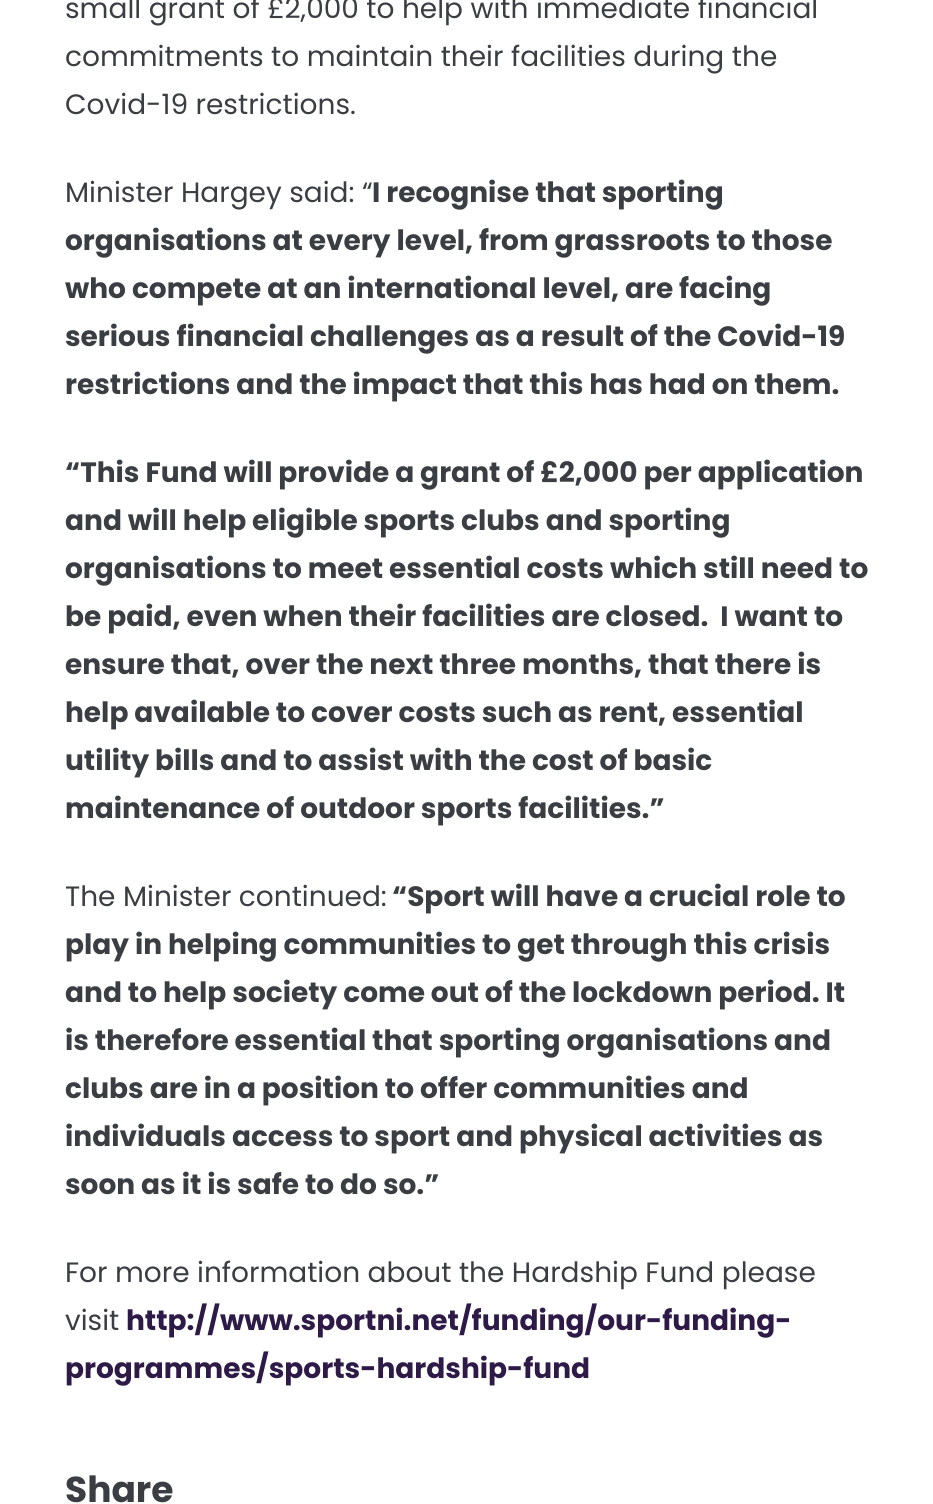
#include <cairo/cairo.h>
#include <math.h>
#include <stddef.h>


static void draw(cairo_t *cr) {
  cairo_set_source_rgb(cr, 1, 1, 1);
  cairo_paint(cr);
  cairo_select_font_face(cr, "Poppins", CAIRO_FONT_SLANT_NORMAL, CAIRO_FONT_WEIGHT_NORMAL);
  cairo_set_font_size(cr, 28);
  cairo_set_source_rgb(cr, 58 / 255.0, 61 / 255.0, 66 / 255.0);
  cairo_move_to(cr, 65, 18);
  cairo_show_text(cr, "small grant of £2,000 to help with immediate financial");
  cairo_move_to(cr, 65, 66);
  cairo_show_text(cr, "commitments to maintain their facilities during the");
  cairo_move_to(cr, 65, 114);
  cairo_show_text(cr, "Covid-19 restrictions.");
  cairo_move_to(cr, 65, 202);
  cairo_show_text(cr, "Minister Hargey said: “");
  cairo_select_font_face(cr, "Poppins", CAIRO_FONT_SLANT_NORMAL, CAIRO_FONT_WEIGHT_BOLD);
  cairo_move_to(cr, 372, 202);
  cairo_show_text(cr, "I recognise that sporting");
  cairo_move_to(cr, 65, 250);
  cairo_show_text(cr, "organisations at every level, from grassroots to those");
  cairo_move_to(cr, 65, 298);
  cairo_show_text(cr, "who compete at an international level, are facing");
  cairo_move_to(cr, 65, 346);
  cairo_show_text(cr, "serious financial challenges as a result of the Covid-19");
  cairo_move_to(cr, 65, 394);
  cairo_show_text(cr, "restrictions and the impact that this has had on them.");
  cairo_move_to(cr, 65, 482);
  cairo_show_text(cr, "“This Fund will provide a grant of £2,000 per application");
  cairo_move_to(cr, 65, 530);
  cairo_show_text(cr, "and will help eligible sports clubs and sporting");
  cairo_move_to(cr, 65, 578);
  cairo_show_text(cr, "organisations to meet essential costs which still need to");
  cairo_move_to(cr, 65, 626);
  cairo_show_text(cr, "be paid, even when their facilities are closed.  I want to");
  cairo_move_to(cr, 65, 674);
  cairo_show_text(cr, "ensure that, over the next three months, that there is");
  cairo_move_to(cr, 65, 722);
  cairo_show_text(cr, "help available to cover costs such as rent, essential");
  cairo_move_to(cr, 65, 770);
  cairo_show_text(cr, "utility bills and to assist with the cost of basic");
  cairo_move_to(cr, 65, 818);
  cairo_show_text(cr, "maintenance of outdoor sports facilities.”");
  cairo_select_font_face(cr, "Poppins", CAIRO_FONT_SLANT_NORMAL, CAIRO_FONT_WEIGHT_NORMAL);
  cairo_move_to(cr, 65, 906);
  cairo_show_text(cr, "The Minister continued:");
  cairo_select_font_face(cr, "Poppins", CAIRO_FONT_SLANT_NORMAL, CAIRO_FONT_WEIGHT_BOLD);
  cairo_move_to(cr, 392, 906);
  cairo_show_text(cr, "“Sport will have a crucial role to");
  cairo_move_to(cr, 65, 954);
  cairo_show_text(cr, "play in helping communities to get through this crisis");
  cairo_move_to(cr, 65, 1002);
  cairo_show_text(cr, "and to help society come out of the lockdown period. It");
  cairo_move_to(cr, 65, 1050);
  cairo_show_text(cr, "is therefore essential that sporting organisations and");
  cairo_move_to(cr, 65, 1098);
  cairo_show_text(cr, "clubs are in a position to offer communities and");
  cairo_move_to(cr, 65, 1146);
  cairo_show_text(cr, "individuals access to sport and physical activities as");
  cairo_move_to(cr, 65, 1194);
  cairo_show_text(cr, "soon as it is safe to do so.”");
  cairo_select_font_face(cr, "Poppins", CAIRO_FONT_SLANT_NORMAL, CAIRO_FONT_WEIGHT_NORMAL);
  cairo_move_to(cr, 65, 1282);
  cairo_show_text(cr, "For more information about the Hardship Fund please");
  cairo_move_to(cr, 65, 1330);
  cairo_show_text(cr, "visit");
  cairo_select_font_face(cr, "Poppins", CAIRO_FONT_SLANT_NORMAL, CAIRO_FONT_WEIGHT_BOLD);
  cairo_set_source_rgb(cr, 46 / 255.0, 26 / 255.0, 71 / 255.0);
  cairo_move_to(cr, 126, 1330);
  cairo_show_text(cr, "http://www.sportni.net/funding/our-funding-");
  cairo_move_to(cr, 65, 1378);
  cairo_show_text(cr, "programmes/sports-hardship-fund");
  cairo_set_font_size(cr, 36);
  cairo_set_source_rgb(cr, 58 / 255.0, 61 / 255.0, 66 / 255.0);
  cairo_move_to(cr, 65, 1502);
  cairo_show_text(cr, "Share");
}

int main(void) {
  cairo_surface_t *surface = cairo_image_surface_create(CAIRO_FORMAT_RGB24, 933, 1504);
  cairo_t *cr = cairo_create(surface);
  cairo_font_options_t *options = cairo_font_options_create();
  cairo_font_options_set_hint_metrics(options, CAIRO_HINT_METRICS_OFF);
  cairo_font_options_set_hint_style(options, CAIRO_HINT_STYLE_NONE);
  cairo_set_font_options(cr, options);
  cairo_set_miter_limit(cr, 4);
  draw(cr);
  cairo_surface_write_to_png(surface, "out.png");
  cairo_font_options_destroy(options);
  cairo_destroy(cr);
  cairo_surface_destroy(surface);
  return 0;
}
